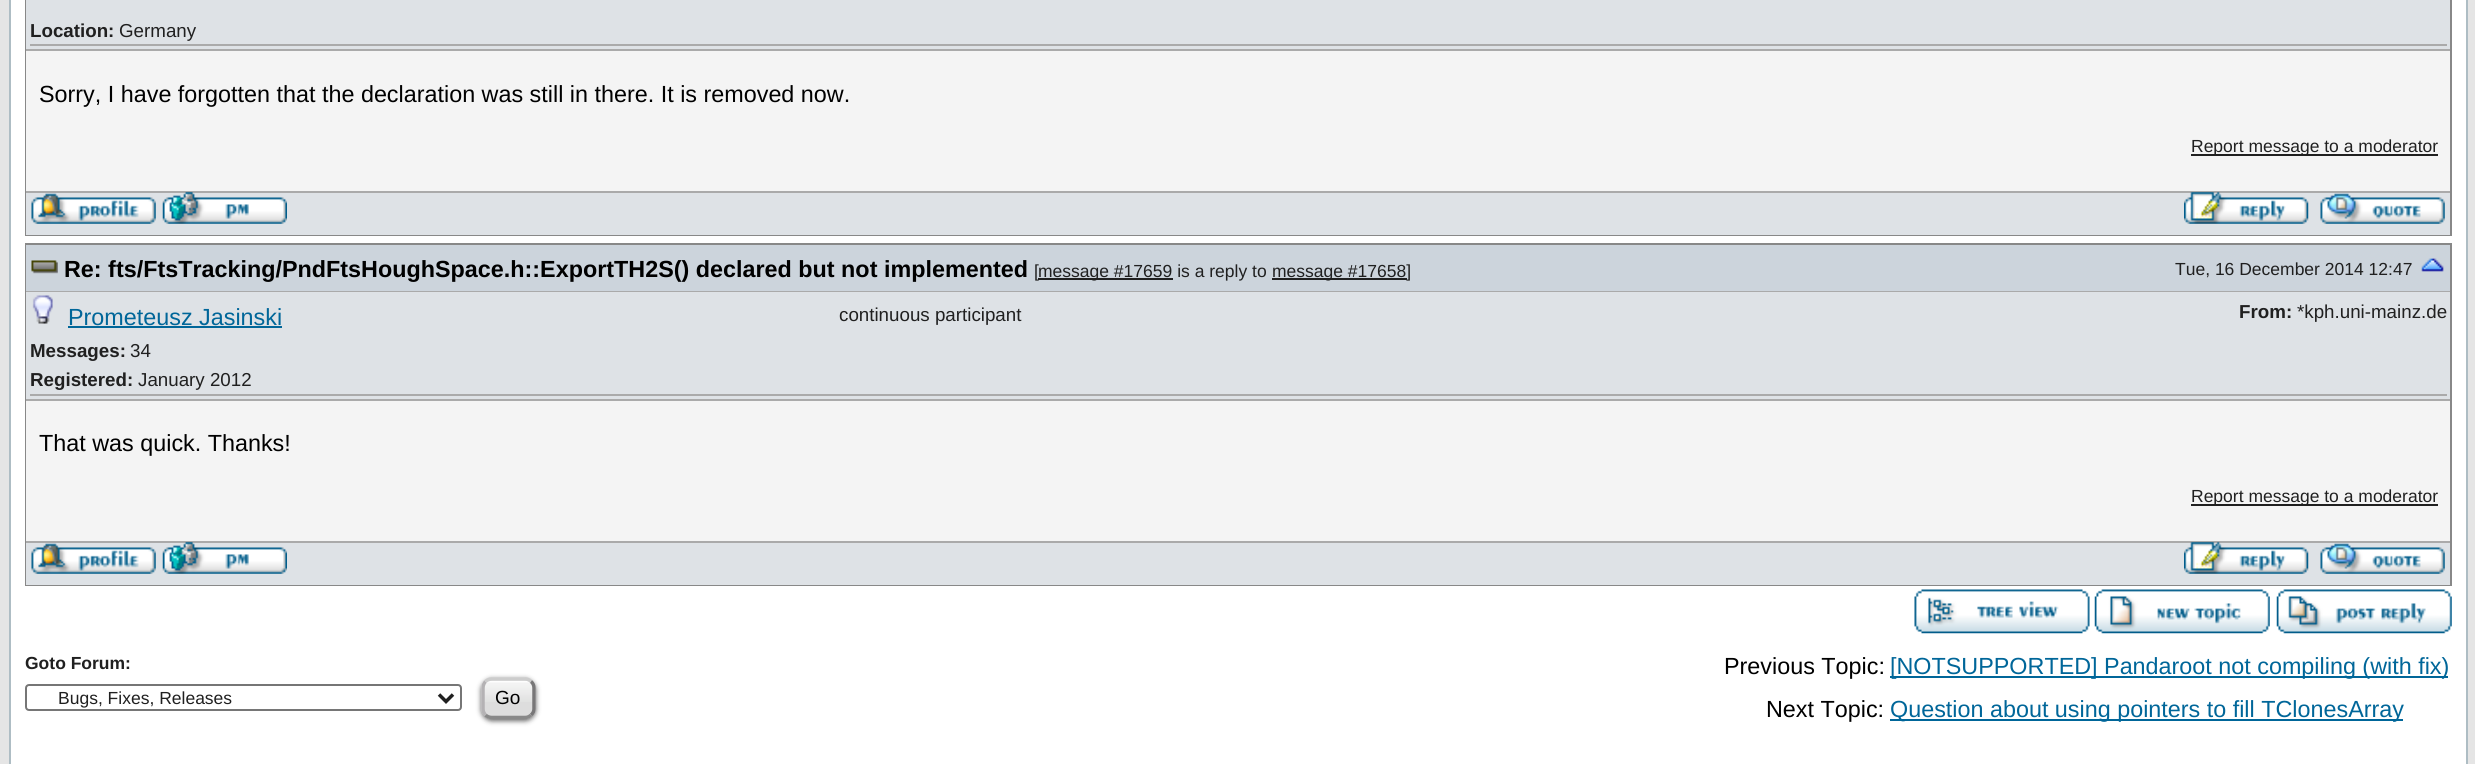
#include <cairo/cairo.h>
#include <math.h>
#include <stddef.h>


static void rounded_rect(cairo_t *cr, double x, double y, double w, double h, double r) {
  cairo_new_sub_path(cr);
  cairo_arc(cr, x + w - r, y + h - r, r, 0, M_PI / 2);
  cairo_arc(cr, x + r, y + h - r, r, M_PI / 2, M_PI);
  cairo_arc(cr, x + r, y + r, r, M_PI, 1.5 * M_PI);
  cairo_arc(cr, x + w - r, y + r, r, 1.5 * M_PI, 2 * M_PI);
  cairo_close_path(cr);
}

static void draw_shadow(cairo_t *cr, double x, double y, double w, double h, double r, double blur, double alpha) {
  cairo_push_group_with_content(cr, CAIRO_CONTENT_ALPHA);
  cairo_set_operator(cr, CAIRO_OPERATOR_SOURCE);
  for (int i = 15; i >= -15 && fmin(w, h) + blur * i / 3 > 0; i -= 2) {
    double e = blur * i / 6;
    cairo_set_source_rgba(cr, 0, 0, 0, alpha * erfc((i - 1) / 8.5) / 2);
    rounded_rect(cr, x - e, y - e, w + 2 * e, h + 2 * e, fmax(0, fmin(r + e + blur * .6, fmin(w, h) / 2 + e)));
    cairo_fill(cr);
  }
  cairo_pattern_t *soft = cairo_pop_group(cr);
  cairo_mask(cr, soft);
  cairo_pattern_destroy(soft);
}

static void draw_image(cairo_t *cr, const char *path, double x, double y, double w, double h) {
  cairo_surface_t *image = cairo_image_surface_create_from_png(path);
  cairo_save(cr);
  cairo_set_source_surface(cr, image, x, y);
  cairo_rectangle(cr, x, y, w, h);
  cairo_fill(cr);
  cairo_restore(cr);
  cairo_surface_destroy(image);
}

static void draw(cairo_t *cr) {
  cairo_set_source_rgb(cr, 229 / 255.0, 229 / 255.0, 229 / 255.0);
  cairo_paint(cr);
  cairo_set_source_rgb(cr, 1, 1, 1);
  cairo_rectangle(cr, 10, -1, 2457, 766);
  cairo_fill_preserve(cr);
  cairo_set_source_rgb(cr, 174 / 255.0, 189 / 255.0, 196 / 255.0);
  cairo_stroke(cr);
  cairo_rectangle(cr, 26, -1, 2425, 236);
  cairo_set_source_rgb(cr, 136 / 255.0, 136 / 255.0, 136 / 255.0);
  cairo_stroke(cr);
  cairo_set_source_rgb(cr, 222 / 255.0, 226 / 255.0, 230 / 255.0);
  cairo_rectangle(cr, 26, 0, 2424, 49);
  cairo_fill(cr);
  cairo_set_source_rgb(cr, 170 / 255.0, 170 / 255.0, 170 / 255.0);
  cairo_rectangle(cr, 26, 49, 2424, 2);
  cairo_fill(cr);
  cairo_rectangle(cr, 30, 44, 2417, 2);
  cairo_fill(cr);
  cairo_set_source_rgb(cr, 244 / 255.0, 244 / 255.0, 244 / 255.0);
  cairo_rectangle(cr, 26, 51, 2424, 140);
  cairo_fill(cr);
  cairo_set_source_rgb(cr, 170 / 255.0, 170 / 255.0, 170 / 255.0);
  cairo_rectangle(cr, 26, 191, 2424, 2);
  cairo_fill(cr);
  cairo_set_source_rgb(cr, 32 / 255.0, 32 / 255.0, 32 / 255.0);
  cairo_rectangle(cr, 2191, 154, 247, 2);
  cairo_fill(cr);
  cairo_set_source_rgb(cr, 222 / 255.0, 226 / 255.0, 230 / 255.0);
  cairo_rectangle(cr, 26, 193, 2424, 42);
  cairo_fill(cr);
  draw_image(cr, "images/1.png", 31, 193, 125, 31);
  draw_image(cr, "images/2.png", 162, 192, 125, 32);
  draw_image(cr, "images/3.png", 2184, 192, 125, 32);
  draw_image(cr, "images/4.png", 2320, 193, 125, 31);
  cairo_rectangle(cr, 26, 244, 2425, 341);
  cairo_set_source_rgb(cr, 136 / 255.0, 136 / 255.0, 136 / 255.0);
  cairo_stroke(cr);
  cairo_set_source_rgb(cr, 204 / 255.0, 212 / 255.0, 220 / 255.0);
  cairo_rectangle(cr, 26, 245, 2424, 46);
  cairo_fill(cr);
  cairo_set_source_rgb(cr, 170 / 255.0, 170 / 255.0, 170 / 255.0);
  cairo_rectangle(cr, 26, 291, 2424, 1);
  cairo_fill(cr);
  draw_image(cr, "images/5.png", 31, 260, 27, 14);
  cairo_set_source_rgb(cr, 32 / 255.0, 32 / 255.0, 32 / 255.0);
  cairo_rectangle(cr, 1038, 278, 135, 2);
  cairo_fill(cr);
  cairo_rectangle(cr, 1272, 278, 135, 2);
  cairo_fill(cr);
  draw_image(cr, "images/6.png", 2421, 258, 23, 14);
  cairo_set_source_rgb(cr, 222 / 255.0, 226 / 255.0, 230 / 255.0);
  cairo_rectangle(cr, 26, 292, 2424, 107);
  cairo_fill(cr);
  cairo_set_source_rgb(cr, 170 / 255.0, 170 / 255.0, 170 / 255.0);
  cairo_rectangle(cr, 26, 399, 2424, 2);
  cairo_fill(cr);
  cairo_rectangle(cr, 30, 394, 2417, 2);
  cairo_fill(cr);
  draw_image(cr, "images/7.png", 32, 295, 21, 29);
  cairo_set_source_rgb(cr, 0, 102 / 255.0, 153 / 255.0);
  cairo_rectangle(cr, 68, 326, 214, 2);
  cairo_fill(cr);
  cairo_set_source_rgb(cr, 244 / 255.0, 244 / 255.0, 244 / 255.0);
  cairo_rectangle(cr, 26, 401, 2424, 140);
  cairo_fill(cr);
  cairo_set_source_rgb(cr, 170 / 255.0, 170 / 255.0, 170 / 255.0);
  cairo_rectangle(cr, 26, 541, 2424, 2);
  cairo_fill(cr);
  cairo_set_source_rgb(cr, 32 / 255.0, 32 / 255.0, 32 / 255.0);
  cairo_rectangle(cr, 2191, 504, 247, 2);
  cairo_fill(cr);
  cairo_set_source_rgb(cr, 222 / 255.0, 226 / 255.0, 230 / 255.0);
  cairo_rectangle(cr, 26, 543, 2424, 42);
  cairo_fill(cr);
  draw_image(cr, "images/1.png", 31, 543, 125, 31);
  draw_image(cr, "images/2.png", 162, 542, 125, 32);
  draw_image(cr, "images/3.png", 2184, 542, 125, 32);
  draw_image(cr, "images/4.png", 2320, 543, 125, 31);
  draw_image(cr, "images/8.png", 1914, 589, 176, 45);
  draw_image(cr, "images/9.png", 2094, 589, 176, 45);
  draw_image(cr, "images/10.png", 2276, 589, 176, 45);
  cairo_set_source_rgb(cr, 0, 102 / 255.0, 153 / 255.0);
  cairo_rectangle(cr, 1890, 676, 558, 2);
  cairo_fill(cr);
  cairo_rectangle(cr, 1890, 719, 513, 2);
  cairo_fill(cr);
  rounded_rect(cr, 26, 685, 435, 25, 3);
  cairo_set_source_rgb(cr, 118 / 255.0, 118 / 255.0, 118 / 255.0);
  cairo_stroke(cr);
  cairo_new_path(cr);
  cairo_move_to(cr, 439, 694.5);
  cairo_line_to(cr, 446, 701.5);
  cairo_line_to(cr, 453, 694.5);
  cairo_set_source_rgb(cr, 32 / 255.0, 32 / 255.0, 32 / 255.0);
  cairo_set_line_width(cr, 3.5);
  cairo_stroke(cr);
  cairo_set_source_rgb(cr, 0, 0, 0);
  draw_shadow(cr, 481, 679, 55, 42, 11, 2.5, 0.6);
  cairo_set_source_rgb(cr, 221 / 255.0, 221 / 255.0, 221 / 255.0);
  rounded_rect(cr, 481, 677, 55, 42, 11);
  cairo_fill(cr);
  draw_image(cr, "images/11.png", 481, 680, 55, 22);
  cairo_new_path(cr);
  cairo_move_to(cr, 485.5, 681.5);
  cairo_curve_to(cr, 487, 680, 489.5, 679, 492, 679);
  cairo_line_to(cr, 525, 679);
  cairo_curve_to(cr, 527.5, 679, 529.5, 680, 531, 681.5);
  cairo_set_source_rgb(cr, 204 / 255.0, 204 / 255.0, 204 / 255.0);
  cairo_stroke(cr);
  cairo_new_path(cr);
  cairo_move_to(cr, 531, 681.5);
  cairo_curve_to(cr, 533, 683, 534, 685.5, 534, 688);
  cairo_line_to(cr, 534, 709);
  cairo_curve_to(cr, 534, 711, 533, 713.5, 531, 715);
  cairo_set_source_rgb(cr, 120 / 255.0, 119 / 255.0, 120 / 255.0);
  cairo_stroke(cr);
  cairo_new_path(cr);
  cairo_move_to(cr, 531, 715);
  cairo_curve_to(cr, 529.5, 716.5, 527.5, 717.5, 525, 717.5);
  cairo_line_to(cr, 492, 717.5);
  cairo_curve_to(cr, 489.5, 717.5, 487, 716.5, 485.5, 715);
  cairo_set_source_rgb(cr, 136 / 255.0, 136 / 255.0, 136 / 255.0);
  cairo_stroke(cr);
  cairo_new_path(cr);
  cairo_move_to(cr, 485.5, 715);
  cairo_curve_to(cr, 484, 713.5, 483, 711, 483, 709);
  cairo_line_to(cr, 483, 688);
  cairo_curve_to(cr, 483, 685.5, 484, 683, 485.5, 681.5);
  cairo_set_source_rgb(cr, 180 / 255.0, 178 / 255.0, 180 / 255.0);
  cairo_stroke(cr);
  cairo_select_font_face(cr, "Liberation Sans", CAIRO_FONT_SLANT_NORMAL, CAIRO_FONT_WEIGHT_BOLD);
  cairo_set_font_size(cr, 18.75);
  cairo_set_source_rgb(cr, 32 / 255.0, 32 / 255.0, 32 / 255.0);
  cairo_move_to(cr, 30, 37);
  cairo_show_text(cr, "Location:");
  cairo_select_font_face(cr, "Liberation Sans", CAIRO_FONT_SLANT_NORMAL, CAIRO_FONT_WEIGHT_NORMAL);
  cairo_move_to(cr, 119, 37);
  cairo_show_text(cr, "Germany");
  cairo_set_font_size(cr, 23.35);
  cairo_set_source_rgb(cr, 0, 0, 0);
  cairo_move_to(cr, 39, 102);
  cairo_show_text(cr, "Sorry, I have forgotten that the declaration was still in there. It is removed now.");
  cairo_set_font_size(cr, 17.5);
  cairo_set_source_rgb(cr, 32 / 255.0, 32 / 255.0, 32 / 255.0);
  cairo_move_to(cr, 2191, 152);
  cairo_show_text(cr, "Report message to a moderator");
  cairo_select_font_face(cr, "Liberation Sans", CAIRO_FONT_SLANT_NORMAL, CAIRO_FONT_WEIGHT_BOLD);
  cairo_set_font_size(cr, 23.35);
  cairo_set_source_rgb(cr, 0, 0, 0);
  cairo_move_to(cr, 64, 277);
  cairo_show_text(cr, "Re: fts/FtsTracking/PndFtsHoughSpace.h::ExportTH2S() declared but not implemented");
  cairo_select_font_face(cr, "Liberation Sans", CAIRO_FONT_SLANT_NORMAL, CAIRO_FONT_WEIGHT_NORMAL);
  cairo_set_font_size(cr, 17.5);
  cairo_set_source_rgb(cr, 32 / 255.0, 32 / 255.0, 32 / 255.0);
  cairo_move_to(cr, 1034, 277);
  cairo_show_text(cr, "[");
  cairo_move_to(cr, 1038, 277);
  cairo_show_text(cr, "message #17659 is a reply to");
  cairo_move_to(cr, 1272, 277);
  cairo_show_text(cr, "message #17658]");
  cairo_move_to(cr, 2175, 275);
  cairo_show_text(cr, "Tue, 16 December 2014 12:47");
  cairo_set_font_size(cr, 23.35);
  cairo_set_source_rgb(cr, 0, 102 / 255.0, 153 / 255.0);
  cairo_move_to(cr, 68, 325);
  cairo_show_text(cr, "Prometeusz Jasinski");
  cairo_select_font_face(cr, "Liberation Sans", CAIRO_FONT_SLANT_NORMAL, CAIRO_FONT_WEIGHT_BOLD);
  cairo_set_font_size(cr, 18.75);
  cairo_set_source_rgb(cr, 32 / 255.0, 32 / 255.0, 32 / 255.0);
  cairo_move_to(cr, 30, 357);
  cairo_show_text(cr, "Messages:");
  cairo_select_font_face(cr, "Liberation Sans", CAIRO_FONT_SLANT_NORMAL, CAIRO_FONT_WEIGHT_NORMAL);
  cairo_move_to(cr, 130, 357);
  cairo_show_text(cr, "34");
  cairo_select_font_face(cr, "Liberation Sans", CAIRO_FONT_SLANT_NORMAL, CAIRO_FONT_WEIGHT_BOLD);
  cairo_move_to(cr, 30, 386);
  cairo_show_text(cr, "Registered:");
  cairo_select_font_face(cr, "Liberation Sans", CAIRO_FONT_SLANT_NORMAL, CAIRO_FONT_WEIGHT_NORMAL);
  cairo_move_to(cr, 138, 386);
  cairo_show_text(cr, "January 2012");
  cairo_move_to(cr, 839, 321);
  cairo_show_text(cr, "continuous participant");
  cairo_select_font_face(cr, "Liberation Sans", CAIRO_FONT_SLANT_NORMAL, CAIRO_FONT_WEIGHT_BOLD);
  cairo_move_to(cr, 2239, 318);
  cairo_show_text(cr, "From:");
  cairo_select_font_face(cr, "Liberation Sans", CAIRO_FONT_SLANT_NORMAL, CAIRO_FONT_WEIGHT_NORMAL);
  cairo_move_to(cr, 2297, 318);
  cairo_show_text(cr, "*kph.uni-mainz.de");
  cairo_set_font_size(cr, 23.35);
  cairo_set_source_rgb(cr, 0, 0, 0);
  cairo_move_to(cr, 39, 451);
  cairo_show_text(cr, "That was quick. Thanks!");
  cairo_set_font_size(cr, 17.5);
  cairo_set_source_rgb(cr, 32 / 255.0, 32 / 255.0, 32 / 255.0);
  cairo_move_to(cr, 2191, 502);
  cairo_show_text(cr, "Report message to a moderator");
  cairo_select_font_face(cr, "Liberation Sans", CAIRO_FONT_SLANT_NORMAL, CAIRO_FONT_WEIGHT_BOLD);
  cairo_move_to(cr, 25, 669);
  cairo_show_text(cr, "Goto Forum:");
  cairo_select_font_face(cr, "Liberation Sans", CAIRO_FONT_SLANT_NORMAL, CAIRO_FONT_WEIGHT_NORMAL);
  cairo_set_font_size(cr, 23.35);
  cairo_set_source_rgb(cr, 0, 0, 0);
  cairo_move_to(cr, 1724, 674);
  cairo_show_text(cr, "Previous Topic:");
  cairo_set_source_rgb(cr, 0, 102 / 255.0, 153 / 255.0);
  cairo_move_to(cr, 1890, 674);
  cairo_show_text(cr, "[NOTSUPPORTED] Pandaroot not compiling (with fix)");
  cairo_set_source_rgb(cr, 0, 0, 0);
  cairo_move_to(cr, 1766, 717);
  cairo_show_text(cr, "Next Topic:");
  cairo_set_source_rgb(cr, 0, 102 / 255.0, 153 / 255.0);
  cairo_move_to(cr, 1890, 717);
  cairo_show_text(cr, "Question about using pointers to fill TClonesArray");
  cairo_set_font_size(cr, 17.5);
  cairo_set_source_rgb(cr, 32 / 255.0, 32 / 255.0, 32 / 255.0);
  cairo_move_to(cr, 58, 704);
  cairo_show_text(cr, "Bugs, Fixes, Releases");
  cairo_set_font_size(cr, 19);
  cairo_set_source_rgb(cr, 0, 0, 0);
  cairo_move_to(cr, 495, 704);
  cairo_show_text(cr, "Go");
}

int main(void) {
  cairo_surface_t *surface = cairo_image_surface_create(CAIRO_FORMAT_RGB24, 2475, 764);
  cairo_t *cr = cairo_create(surface);
  cairo_font_options_t *options = cairo_font_options_create();
  cairo_font_options_set_hint_metrics(options, CAIRO_HINT_METRICS_OFF);
  cairo_font_options_set_hint_style(options, CAIRO_HINT_STYLE_NONE);
  cairo_set_font_options(cr, options);
  cairo_set_miter_limit(cr, 4);
  draw(cr);
  cairo_surface_write_to_png(surface, "out.png");
  cairo_font_options_destroy(options);
  cairo_destroy(cr);
  cairo_surface_destroy(surface);
  return 0;
}
